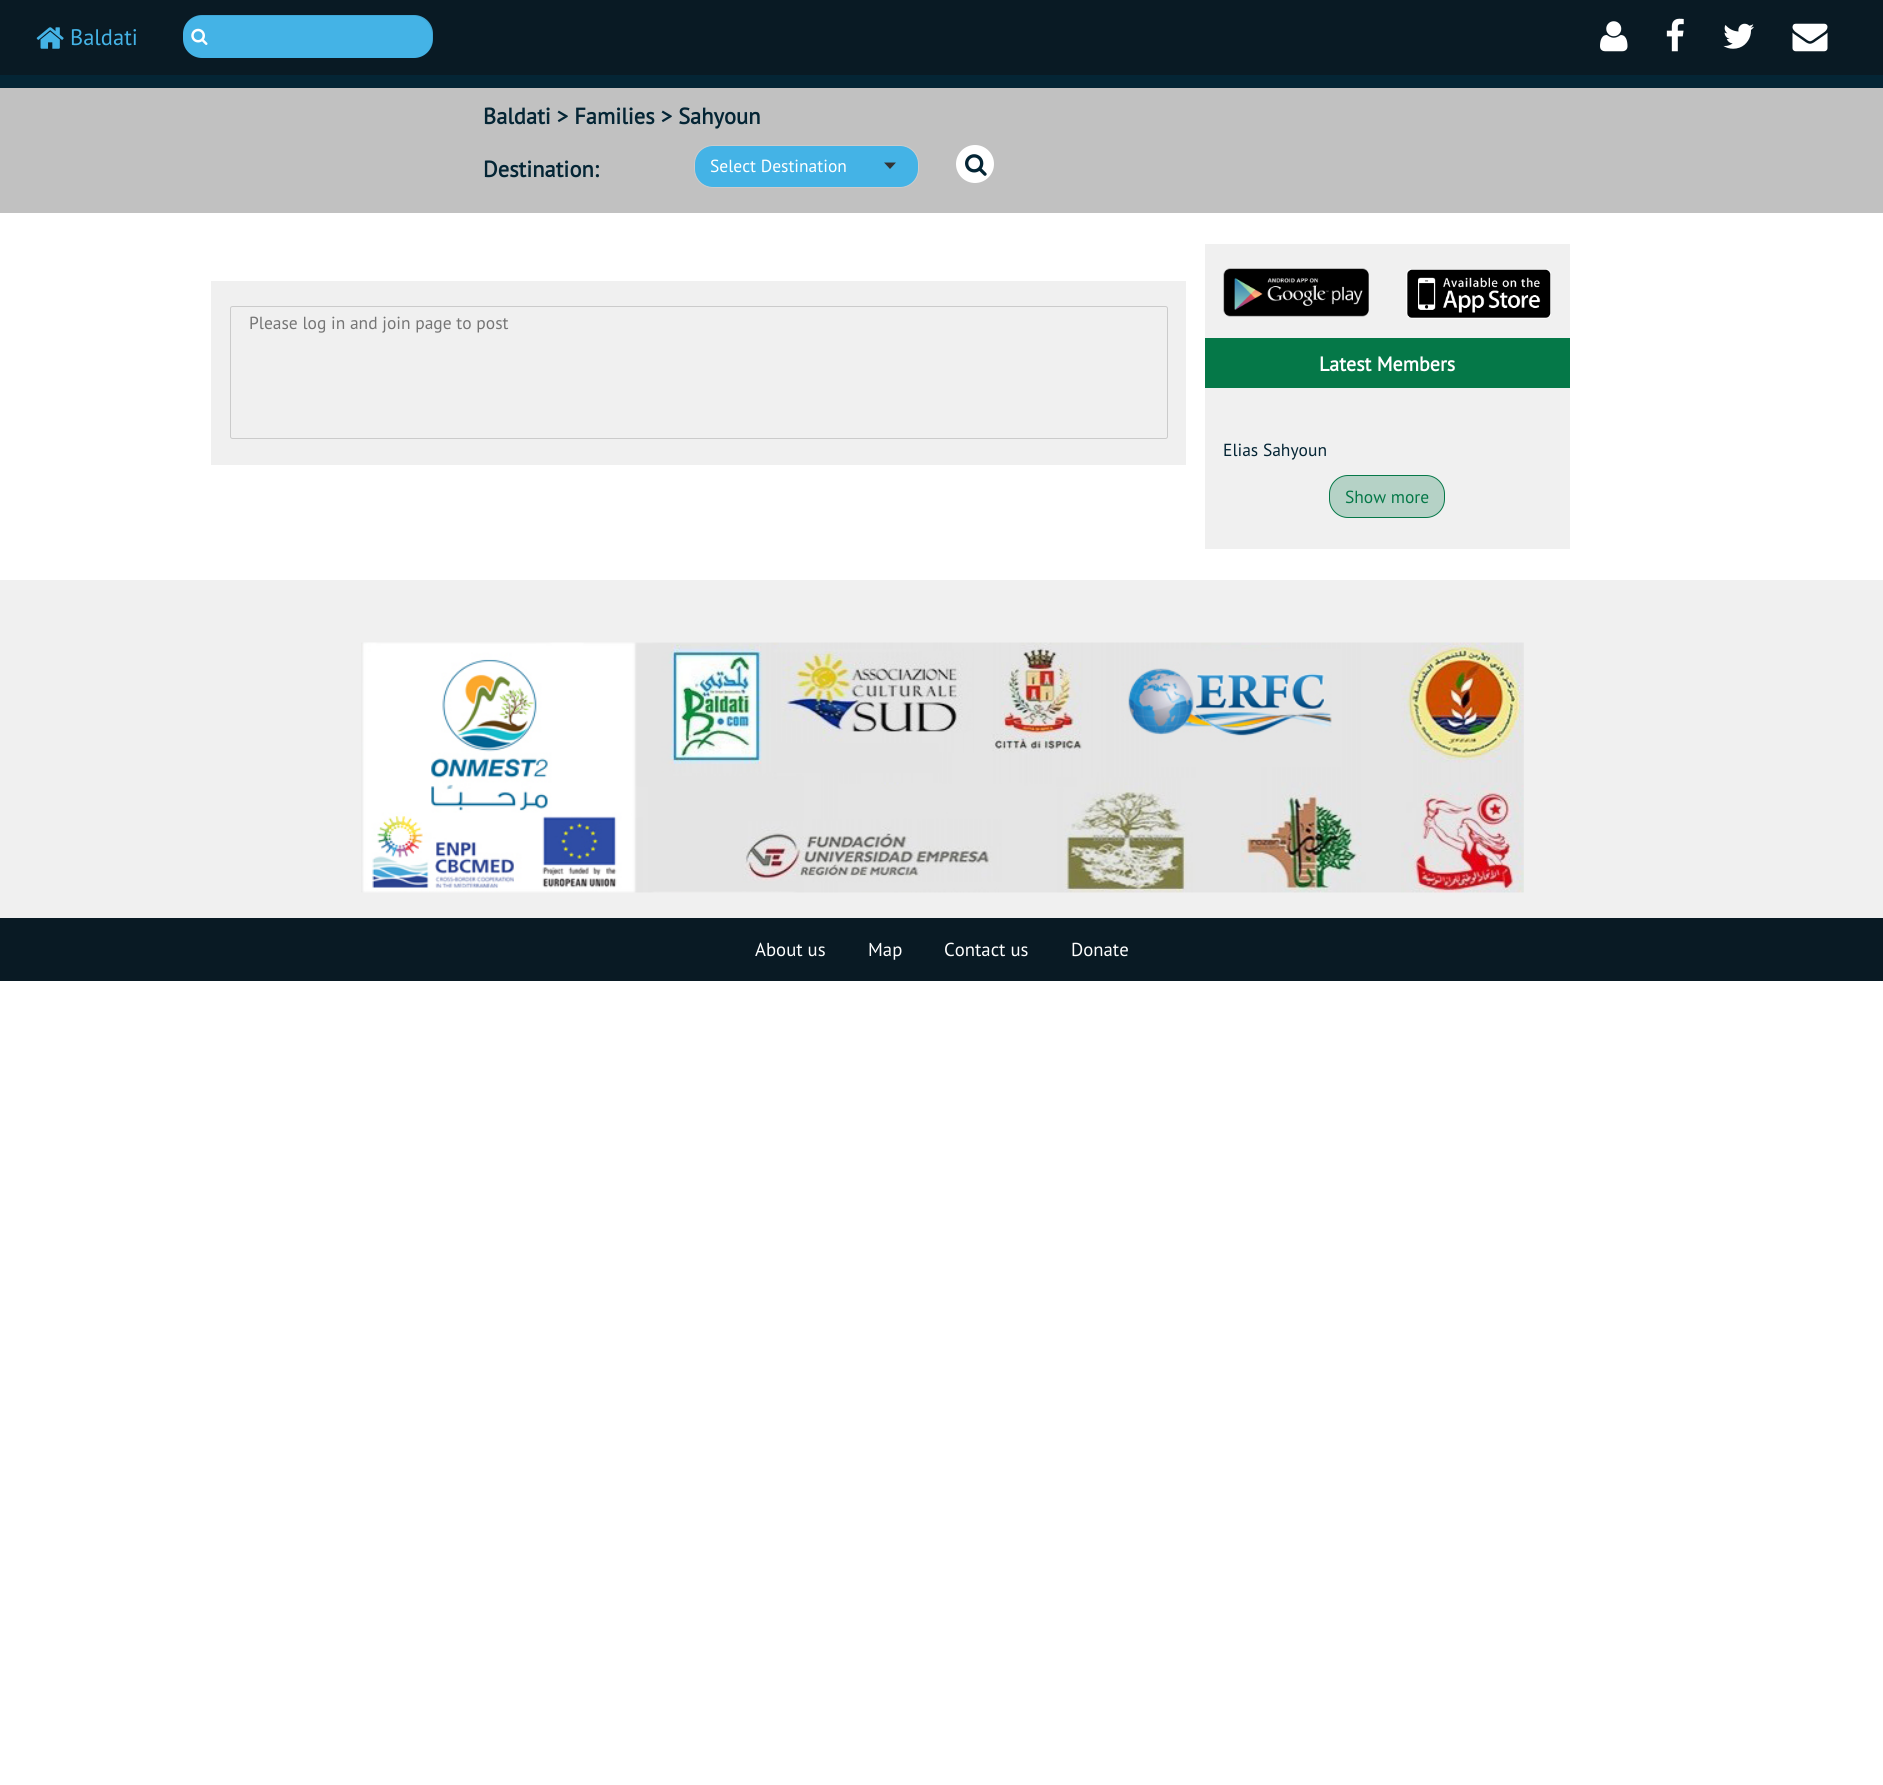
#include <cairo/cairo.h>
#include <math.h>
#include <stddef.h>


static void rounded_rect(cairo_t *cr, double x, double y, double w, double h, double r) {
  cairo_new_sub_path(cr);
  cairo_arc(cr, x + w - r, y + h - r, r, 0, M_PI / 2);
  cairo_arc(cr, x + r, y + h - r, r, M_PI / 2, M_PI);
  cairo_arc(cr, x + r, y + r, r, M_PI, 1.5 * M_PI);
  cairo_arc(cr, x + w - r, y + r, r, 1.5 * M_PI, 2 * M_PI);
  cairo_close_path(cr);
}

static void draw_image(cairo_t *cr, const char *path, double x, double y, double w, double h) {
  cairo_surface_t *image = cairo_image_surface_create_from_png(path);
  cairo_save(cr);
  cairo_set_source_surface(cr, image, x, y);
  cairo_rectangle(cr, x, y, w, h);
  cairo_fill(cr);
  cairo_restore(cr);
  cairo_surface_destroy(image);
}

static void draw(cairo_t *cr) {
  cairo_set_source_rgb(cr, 1, 1, 1);
  cairo_paint(cr);
  cairo_set_source_rgb(cr, 9 / 255.0, 26 / 255.0, 36 / 255.0);
  cairo_rectangle(cr, 0, 0, 1883, 75);
  cairo_fill(cr);
  draw_image(cr, "images/1.png", 36, 27, 28, 22);
  cairo_set_source_rgb(cr, 68 / 255.0, 179 / 255.0, 230 / 255.0);
  rounded_rect(cr, 183, 15, 250, 43, 19);
  cairo_fill(cr);
  cairo_set_source_rgba(cr, 0, 0, 0, 0.07);
  cairo_new_path(cr);
  cairo_move_to(cr, 201, 16);
  cairo_line_to(cr, 414, 16);
  cairo_curve_to(cr, 424, 16, 432, 25, 432, 35);
  cairo_line_to(cr, 432, 40);
  cairo_curve_to(cr, 432, 45, 430, 49, 428, 52);
  cairo_curve_to(cr, 431, 49, 433, 44, 433, 39);
  cairo_line_to(cr, 433, 34);
  cairo_curve_to(cr, 433, 24, 424, 15, 414, 15);
  cairo_line_to(cr, 202, 15);
  cairo_curve_to(cr, 195, 15, 189, 18, 186, 24);
  cairo_curve_to(cr, 190, 19, 195, 16, 201, 16);
  cairo_close_path(cr);
  cairo_fill(cr);
  draw_image(cr, "images/2.png", 191, 28, 17, 17);
  draw_image(cr, "images/3.png", 1600, 21, 28, 31);
  draw_image(cr, "images/4.png", 1666, 18, 18, 34);
  draw_image(cr, "images/5.png", 1723, 23, 31, 26);
  draw_image(cr, "images/6.png", 1792, 23, 36, 29);
  cairo_set_source_rgb(cr, 4 / 255.0, 37 / 255.0, 53 / 255.0);
  cairo_rectangle(cr, 0, 75, 1883, 13);
  cairo_fill(cr);
  cairo_set_source_rgb(cr, 193 / 255.0, 193 / 255.0, 193 / 255.0);
  cairo_rectangle(cr, 0, 88, 1883, 125);
  cairo_fill(cr);
  cairo_set_source_rgb(cr, 68 / 255.0, 179 / 255.0, 230 / 255.0);
  rounded_rect(cr, 694.5, 145.5, 224, 42, 18.5);
  cairo_fill_preserve(cr);
  cairo_set_source_rgb(cr, 204 / 255.0, 204 / 255.0, 204 / 255.0);
  cairo_set_line_width(cr, 1);
  cairo_stroke(cr);
  cairo_set_source_rgb(cr, 51 / 255.0, 51 / 255.0, 51 / 255.0);
  cairo_new_path(cr);
  cairo_move_to(cr, 884, 162.5);
  cairo_line_to(cr, 896, 162.5);
  cairo_line_to(cr, 890, 169);
  cairo_close_path(cr);
  cairo_fill(cr);
  cairo_set_source_rgb(cr, 1, 1, 1);
  cairo_arc(cr, 975, 164, 19, 0, 2 * M_PI);
  cairo_fill(cr);
  draw_image(cr, "images/7.png", 965, 154, 22, 22);
  cairo_set_source_rgb(cr, 240 / 255.0, 240 / 255.0, 240 / 255.0);
  cairo_rectangle(cr, 211, 281, 975, 184);
  cairo_fill(cr);
  rounded_rect(cr, 230.5, 306.5, 937, 132, 2);
  cairo_set_source_rgb(cr, 203 / 255.0, 203 / 255.0, 203 / 255.0);
  cairo_stroke(cr);
  cairo_set_source_rgb(cr, 240 / 255.0, 240 / 255.0, 240 / 255.0);
  cairo_rectangle(cr, 1205, 244, 365, 305);
  cairo_fill(cr);
  draw_image(cr, "images/8.png", 1223, 268, 146, 49);
  draw_image(cr, "images/9.png", 1406, 269, 145, 50);
  cairo_set_source_rgb(cr, 5 / 255.0, 120 / 255.0, 72 / 255.0);
  cairo_rectangle(cr, 1205, 338, 365, 50);
  cairo_fill(cr);
  cairo_set_source_rgb(cr, 181 / 255.0, 210 / 255.0, 198 / 255.0);
  rounded_rect(cr, 1329.5, 475.5, 115, 42, 18.5);
  cairo_fill_preserve(cr);
  cairo_set_source_rgb(cr, 5 / 255.0, 120 / 255.0, 72 / 255.0);
  cairo_stroke(cr);
  cairo_set_source_rgb(cr, 240 / 255.0, 240 / 255.0, 240 / 255.0);
  cairo_rectangle(cr, 0, 580, 1883, 338);
  cairo_fill(cr);
  draw_image(cr, "images/10.png", 361, 642, 1163, 251);
  cairo_set_source_rgb(cr, 9 / 255.0, 26 / 255.0, 36 / 255.0);
  cairo_rectangle(cr, 0, 918, 1883, 63);
  cairo_fill(cr);
  cairo_select_font_face(cr, "PT Sans", CAIRO_FONT_SLANT_NORMAL, CAIRO_FONT_WEIGHT_NORMAL);
  cairo_set_font_size(cr, 22.5);
  cairo_set_source_rgb(cr, 68 / 255.0, 179 / 255.0, 230 / 255.0);
  cairo_move_to(cr, 70, 45);
  cairo_show_text(cr, "Baldati");
  cairo_select_font_face(cr, "PT Sans", CAIRO_FONT_SLANT_NORMAL, CAIRO_FONT_WEIGHT_BOLD);
  cairo_set_source_rgb(cr, 4 / 255.0, 37 / 255.0, 53 / 255.0);
  cairo_move_to(cr, 483, 124);
  cairo_show_text(cr, "Baldati > Families > Sahyoun");
  cairo_move_to(cr, 483, 177);
  cairo_show_text(cr, "Destination:");
  cairo_select_font_face(cr, "PT Sans", CAIRO_FONT_SLANT_NORMAL, CAIRO_FONT_WEIGHT_NORMAL);
  cairo_set_font_size(cr, 17.5);
  cairo_set_source_rgb(cr, 1, 1, 1);
  cairo_move_to(cr, 710, 172);
  cairo_show_text(cr, "Select Destination");
  cairo_set_source_rgb(cr, 117 / 255.0, 117 / 255.0, 117 / 255.0);
  cairo_move_to(cr, 249, 329);
  cairo_show_text(cr, "Please log in and join page to post");
  cairo_select_font_face(cr, "PT Sans", CAIRO_FONT_SLANT_NORMAL, CAIRO_FONT_WEIGHT_BOLD);
  cairo_set_font_size(cr, 20);
  cairo_set_source_rgb(cr, 1, 1, 1);
  cairo_move_to(cr, 1319, 371);
  cairo_show_text(cr, "Latest Members");
  cairo_select_font_face(cr, "PT Sans", CAIRO_FONT_SLANT_NORMAL, CAIRO_FONT_WEIGHT_NORMAL);
  cairo_set_font_size(cr, 17.5);
  cairo_set_source_rgb(cr, 4 / 255.0, 37 / 255.0, 53 / 255.0);
  cairo_move_to(cr, 1223, 456);
  cairo_show_text(cr, "Elias Sahyoun");
  cairo_set_source_rgb(cr, 5 / 255.0, 120 / 255.0, 72 / 255.0);
  cairo_move_to(cr, 1345, 503);
  cairo_show_text(cr, "Show more");
  cairo_set_font_size(cr, 18.75);
  cairo_set_source_rgb(cr, 1, 1, 1);
  cairo_move_to(cr, 755, 956);
  cairo_show_text(cr, "About us");
  cairo_move_to(cr, 868, 956);
  cairo_show_text(cr, "Map");
  cairo_move_to(cr, 944, 956);
  cairo_show_text(cr, "Contact us");
  cairo_move_to(cr, 1071, 956);
  cairo_show_text(cr, "Donate");
}

int main(void) {
  cairo_surface_t *surface = cairo_image_surface_create(CAIRO_FORMAT_RGB24, 1883, 1785);
  cairo_t *cr = cairo_create(surface);
  cairo_font_options_t *options = cairo_font_options_create();
  cairo_font_options_set_hint_metrics(options, CAIRO_HINT_METRICS_OFF);
  cairo_font_options_set_hint_style(options, CAIRO_HINT_STYLE_NONE);
  cairo_set_font_options(cr, options);
  cairo_set_miter_limit(cr, 4);
  draw(cr);
  cairo_surface_write_to_png(surface, "out.png");
  cairo_font_options_destroy(options);
  cairo_destroy(cr);
  cairo_surface_destroy(surface);
  return 0;
}
